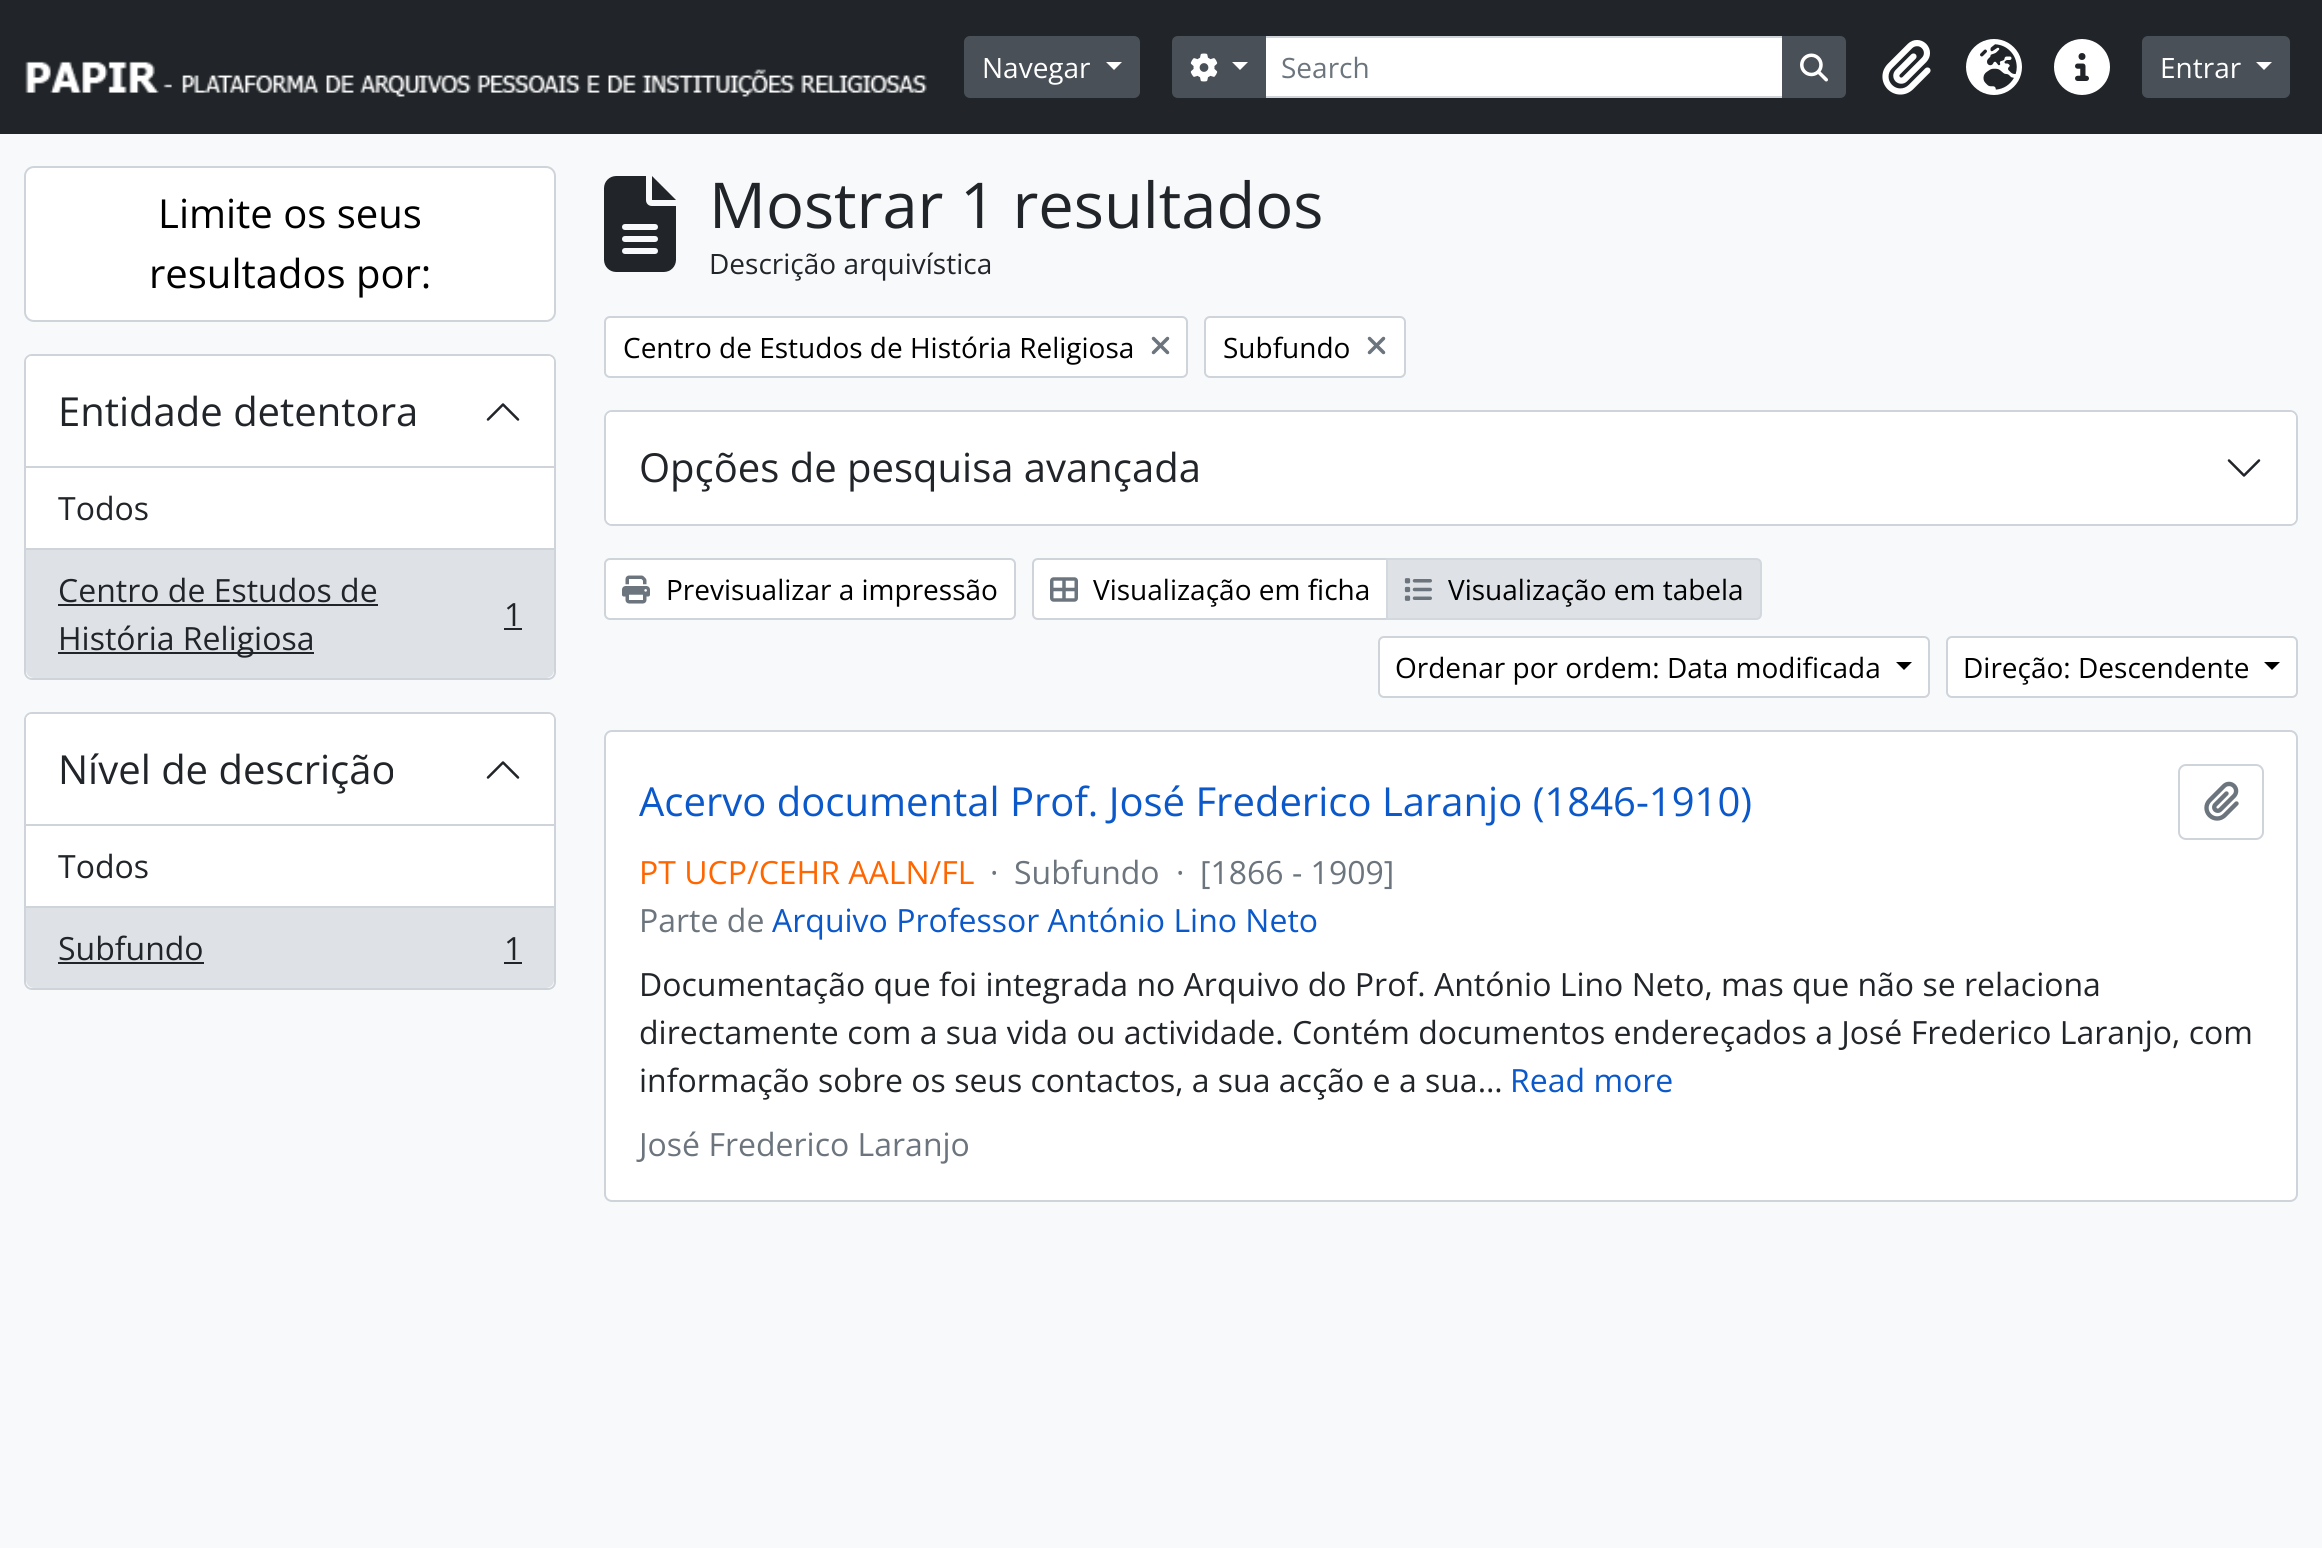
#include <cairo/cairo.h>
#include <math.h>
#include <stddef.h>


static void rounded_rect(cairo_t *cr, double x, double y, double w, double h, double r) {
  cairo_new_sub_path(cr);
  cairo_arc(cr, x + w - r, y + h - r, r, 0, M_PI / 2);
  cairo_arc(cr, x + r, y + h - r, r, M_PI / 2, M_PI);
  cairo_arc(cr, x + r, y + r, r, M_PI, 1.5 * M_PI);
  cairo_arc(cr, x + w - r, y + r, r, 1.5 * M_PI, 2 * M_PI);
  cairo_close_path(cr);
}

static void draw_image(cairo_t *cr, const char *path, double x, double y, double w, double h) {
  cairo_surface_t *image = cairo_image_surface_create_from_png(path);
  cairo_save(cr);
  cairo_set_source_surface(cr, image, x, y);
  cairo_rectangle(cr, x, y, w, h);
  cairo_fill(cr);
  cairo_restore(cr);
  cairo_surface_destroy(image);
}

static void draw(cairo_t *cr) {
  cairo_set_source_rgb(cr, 248 / 255.0, 249 / 255.0, 250 / 255.0);
  cairo_paint(cr);
  cairo_set_source_rgb(cr, 33 / 255.0, 37 / 255.0, 41 / 255.0);
  cairo_rectangle(cr, 0, 0, 2322, 134);
  cairo_fill(cr);
  draw_image(cr, "images/1.png", 25, 61, 902, 36);
  cairo_set_source_rgb(cr, 73 / 255.0, 80 / 255.0, 87 / 255.0);
  rounded_rect(cr, 965, 37, 174, 60, 5);
  cairo_fill_preserve(cr);
  cairo_stroke(cr);
  cairo_set_source_rgb(cr, 1, 1, 1);
  cairo_new_path(cr);
  cairo_move_to(cr, 1106, 62);
  cairo_line_to(cr, 1122, 62);
  cairo_line_to(cr, 1114, 70);
  cairo_close_path(cr);
  cairo_fill(cr);
  cairo_rectangle(cr, 1265, 37, 518, 60);
  cairo_fill_preserve(cr);
  cairo_set_source_rgb(cr, 206 / 255.0, 212 / 255.0, 218 / 255.0);
  cairo_stroke(cr);
  cairo_set_source_rgb(cr, 73 / 255.0, 80 / 255.0, 87 / 255.0);
  cairo_new_path(cr);
  cairo_move_to(cr, 1178, 37);
  cairo_line_to(cr, 1265, 37);
  cairo_line_to(cr, 1265, 97);
  cairo_line_to(cr, 1178, 97);
  cairo_curve_to(cr, 1175, 97, 1173, 95, 1173, 92);
  cairo_line_to(cr, 1173, 42);
  cairo_curve_to(cr, 1173, 39, 1175, 37, 1178, 37);
  cairo_close_path(cr);
  cairo_fill_preserve(cr);
  cairo_stroke(cr);
  draw_image(cr, "images/2.png", 1190, 53, 28, 29);
  cairo_set_source_rgb(cr, 1, 1, 1);
  cairo_new_path(cr);
  cairo_move_to(cr, 1232, 62);
  cairo_line_to(cr, 1248, 62);
  cairo_line_to(cr, 1240, 70);
  cairo_close_path(cr);
  cairo_fill(cr);
  cairo_set_source_rgb(cr, 73 / 255.0, 80 / 255.0, 87 / 255.0);
  cairo_new_path(cr);
  cairo_move_to(cr, 1783, 37);
  cairo_line_to(cr, 1840, 37);
  cairo_curve_to(cr, 1843, 37, 1845, 39, 1845, 42);
  cairo_line_to(cr, 1845, 92);
  cairo_curve_to(cr, 1845, 95, 1843, 97, 1840, 97);
  cairo_line_to(cr, 1783, 97);
  cairo_close_path(cr);
  cairo_fill_preserve(cr);
  cairo_stroke(cr);
  draw_image(cr, "images/3.png", 1800, 53, 28, 29);
  draw_image(cr, "images/4.png", 1882, 40, 49, 55);
  draw_image(cr, "images/5.png", 1966, 39, 56, 56);
  draw_image(cr, "images/6.png", 2054, 39, 56, 56);
  rounded_rect(cr, 2143, 37, 146, 60, 5);
  cairo_fill_preserve(cr);
  cairo_stroke(cr);
  cairo_set_source_rgb(cr, 1, 1, 1);
  cairo_new_path(cr);
  cairo_move_to(cr, 2256, 62);
  cairo_line_to(cr, 2272, 62);
  cairo_line_to(cr, 2264, 70);
  cairo_close_path(cr);
  cairo_fill(cr);
  rounded_rect(cr, 25, 167, 530, 154, 9);
  cairo_fill_preserve(cr);
  cairo_set_source_rgb(cr, 206 / 255.0, 212 / 255.0, 218 / 255.0);
  cairo_stroke(cr);
  cairo_set_source_rgb(cr, 1, 1, 1);
  rounded_rect(cr, 25, 355, 530, 324, 7);
  cairo_fill_preserve(cr);
  cairo_set_source_rgb(cr, 206 / 255.0, 212 / 255.0, 218 / 255.0);
  cairo_stroke(cr);
  cairo_set_source_rgb(cr, 1, 1, 1);
  cairo_new_path(cr);
  cairo_move_to(cr, 32, 356);
  cairo_line_to(cr, 548, 356);
  cairo_curve_to(cr, 551.5, 356, 554, 358.5, 554, 362);
  cairo_line_to(cr, 554, 468);
  cairo_line_to(cr, 26, 468);
  cairo_line_to(cr, 26, 362);
  cairo_curve_to(cr, 26, 358.5, 28.5, 356, 32, 356);
  cairo_close_path(cr);
  cairo_fill(cr);
  cairo_set_source_rgb(cr, 206 / 255.0, 212 / 255.0, 218 / 255.0);
  cairo_rectangle(cr, 26, 466, 528, 2);
  cairo_fill(cr);
  draw_image(cr, "images/7.png", 486, 403, 34, 18);
  cairo_rectangle(cr, 26, 548, 528, 2);
  cairo_fill(cr);
  cairo_set_source_rgb(cr, 222 / 255.0, 226 / 255.0, 230 / 255.0);
  cairo_new_path(cr);
  cairo_move_to(cr, 26, 550);
  cairo_line_to(cr, 554, 550);
  cairo_line_to(cr, 554, 670);
  cairo_curve_to(cr, 554, 674.5, 550.5, 678, 546, 678);
  cairo_line_to(cr, 34, 678);
  cairo_curve_to(cr, 29.5, 678, 26, 674.5, 26, 670);
  cairo_close_path(cr);
  cairo_fill(cr);
  cairo_set_source_rgb(cr, 33 / 255.0, 37 / 255.0, 41 / 255.0);
  cairo_rectangle(cr, 58, 604, 320, 2);
  cairo_fill(cr);
  cairo_rectangle(cr, 504, 628, 18, 2);
  cairo_fill(cr);
  cairo_rectangle(cr, 58, 652, 256, 2);
  cairo_fill(cr);
  cairo_set_source_rgb(cr, 1, 1, 1);
  rounded_rect(cr, 25, 713, 530, 276, 7);
  cairo_fill_preserve(cr);
  cairo_set_source_rgb(cr, 206 / 255.0, 212 / 255.0, 218 / 255.0);
  cairo_stroke(cr);
  cairo_set_source_rgb(cr, 1, 1, 1);
  cairo_new_path(cr);
  cairo_move_to(cr, 32, 714);
  cairo_line_to(cr, 548, 714);
  cairo_curve_to(cr, 551.5, 714, 554, 716.5, 554, 720);
  cairo_line_to(cr, 554, 826);
  cairo_line_to(cr, 26, 826);
  cairo_line_to(cr, 26, 720);
  cairo_curve_to(cr, 26, 716.5, 28.5, 714, 32, 714);
  cairo_close_path(cr);
  cairo_fill(cr);
  cairo_set_source_rgb(cr, 206 / 255.0, 212 / 255.0, 218 / 255.0);
  cairo_rectangle(cr, 26, 824, 528, 2);
  cairo_fill(cr);
  draw_image(cr, "images/7.png", 486, 761, 34, 18);
  cairo_rectangle(cr, 26, 906, 528, 2);
  cairo_fill(cr);
  cairo_set_source_rgb(cr, 222 / 255.0, 226 / 255.0, 230 / 255.0);
  cairo_new_path(cr);
  cairo_move_to(cr, 26, 908);
  cairo_line_to(cr, 554, 908);
  cairo_line_to(cr, 554, 980);
  cairo_curve_to(cr, 554, 984.5, 550.5, 988, 546, 988);
  cairo_line_to(cr, 34, 988);
  cairo_curve_to(cr, 29.5, 988, 26, 984.5, 26, 980);
  cairo_close_path(cr);
  cairo_fill(cr);
  cairo_set_source_rgb(cr, 33 / 255.0, 37 / 255.0, 41 / 255.0);
  cairo_rectangle(cr, 58, 962, 146, 2);
  cairo_fill(cr);
  cairo_rectangle(cr, 504, 962, 18, 2);
  cairo_fill(cr);
  draw_image(cr, "images/8.png", 604, 176, 72, 96);
  cairo_set_source_rgb(cr, 1, 1, 1);
  rounded_rect(cr, 605, 317, 582, 60, 5);
  cairo_fill_preserve(cr);
  cairo_set_source_rgb(cr, 206 / 255.0, 212 / 255.0, 218 / 255.0);
  cairo_stroke(cr);
  draw_image(cr, "images/9.png", 1151, 336, 19, 19);
  cairo_set_source_rgb(cr, 1, 1, 1);
  rounded_rect(cr, 1205, 317, 200, 60, 5);
  cairo_fill_preserve(cr);
  cairo_set_source_rgb(cr, 206 / 255.0, 212 / 255.0, 218 / 255.0);
  cairo_stroke(cr);
  draw_image(cr, "images/9.png", 1367, 336, 19, 19);
  rounded_rect(cr, 605, 411, 1692, 114, 7);
  cairo_stroke(cr);
  cairo_set_source_rgb(cr, 1, 1, 1);
  rounded_rect(cr, 606, 412, 1690, 112, 6);
  cairo_fill(cr);
  draw_image(cr, "images/10.png", 2227, 459, 34, 18);
  rounded_rect(cr, 605, 559, 410, 60, 5);
  cairo_fill_preserve(cr);
  cairo_set_source_rgb(cr, 206 / 255.0, 212 / 255.0, 218 / 255.0);
  cairo_stroke(cr);
  draw_image(cr, "images/11.png", 622, 575, 28, 29);
  cairo_set_source_rgb(cr, 1, 1, 1);
  cairo_new_path(cr);
  cairo_move_to(cr, 1038, 559);
  cairo_line_to(cr, 1387, 559);
  cairo_line_to(cr, 1387, 619);
  cairo_line_to(cr, 1038, 619);
  cairo_curve_to(cr, 1035, 619, 1033, 617, 1033, 614);
  cairo_line_to(cr, 1033, 564);
  cairo_curve_to(cr, 1033, 561, 1035, 559, 1038, 559);
  cairo_close_path(cr);
  cairo_fill_preserve(cr);
  cairo_set_source_rgb(cr, 206 / 255.0, 212 / 255.0, 218 / 255.0);
  cairo_stroke(cr);
  draw_image(cr, "images/12.png", 1050, 577, 28, 25);
  cairo_set_source_rgb(cr, 222 / 255.0, 226 / 255.0, 230 / 255.0);
  cairo_new_path(cr);
  cairo_move_to(cr, 1387, 559);
  cairo_line_to(cr, 1756, 559);
  cairo_curve_to(cr, 1759, 559, 1761, 561, 1761, 564);
  cairo_line_to(cr, 1761, 614);
  cairo_curve_to(cr, 1761, 617, 1759, 619, 1756, 619);
  cairo_line_to(cr, 1387, 619);
  cairo_close_path(cr);
  cairo_fill_preserve(cr);
  cairo_set_source_rgb(cr, 211 / 255.0, 216 / 255.0, 222 / 255.0);
  cairo_stroke(cr);
  draw_image(cr, "images/13.png", 1404, 578, 28, 23);
  cairo_set_source_rgb(cr, 1, 1, 1);
  rounded_rect(cr, 1379, 637, 550, 60, 5);
  cairo_fill_preserve(cr);
  cairo_set_source_rgb(cr, 206 / 255.0, 212 / 255.0, 218 / 255.0);
  cairo_stroke(cr);
  cairo_set_source_rgb(cr, 0, 0, 0);
  cairo_new_path(cr);
  cairo_move_to(cr, 1896, 662);
  cairo_line_to(cr, 1912, 662);
  cairo_line_to(cr, 1904, 670);
  cairo_close_path(cr);
  cairo_fill(cr);
  cairo_set_source_rgb(cr, 1, 1, 1);
  rounded_rect(cr, 1947, 637, 350, 60, 5);
  cairo_fill_preserve(cr);
  cairo_set_source_rgb(cr, 206 / 255.0, 212 / 255.0, 218 / 255.0);
  cairo_stroke(cr);
  cairo_set_source_rgb(cr, 0, 0, 0);
  cairo_new_path(cr);
  cairo_move_to(cr, 2264, 662);
  cairo_line_to(cr, 2280, 662);
  cairo_line_to(cr, 2272, 670);
  cairo_close_path(cr);
  cairo_fill(cr);
  cairo_set_source_rgb(cr, 1, 1, 1);
  rounded_rect(cr, 605, 731, 1692, 470, 7);
  cairo_fill_preserve(cr);
  cairo_set_source_rgb(cr, 206 / 255.0, 212 / 255.0, 218 / 255.0);
  cairo_stroke(cr);
  rounded_rect(cr, 2179, 765, 84, 74, 7);
  cairo_stroke(cr);
  draw_image(cr, "images/14.png", 2204, 781, 35, 40);
  cairo_select_font_face(cr, "Open Sans", CAIRO_FONT_SLANT_NORMAL, CAIRO_FONT_WEIGHT_NORMAL);
  cairo_set_font_size(cr, 28);
  cairo_set_source_rgb(cr, 1, 1, 1);
  cairo_move_to(cr, 982, 78);
  cairo_show_text(cr, "Navegar");
  cairo_set_source_rgb(cr, 108 / 255.0, 117 / 255.0, 125 / 255.0);
  cairo_move_to(cr, 1281, 78);
  cairo_show_text(cr, "Search");
  cairo_set_source_rgb(cr, 1, 1, 1);
  cairo_move_to(cr, 2160, 78);
  cairo_show_text(cr, "Entrar");
  cairo_set_font_size(cr, 40);
  cairo_set_source_rgb(cr, 0, 0, 0);
  cairo_move_to(cr, 158, 228);
  cairo_show_text(cr, "Limite os seus");
  cairo_move_to(cr, 149, 288);
  cairo_show_text(cr, "resultados por:");
  cairo_set_source_rgb(cr, 33 / 255.0, 37 / 255.0, 41 / 255.0);
  cairo_move_to(cr, 58, 426);
  cairo_show_text(cr, "Entidade detentora");
  cairo_set_font_size(cr, 32);
  cairo_move_to(cr, 58, 520);
  cairo_show_text(cr, "Todos");
  cairo_move_to(cr, 58, 602);
  cairo_show_text(cr, "Centro de Estudos de");
  cairo_move_to(cr, 504, 626);
  cairo_show_text(cr, "1");
  cairo_move_to(cr, 58, 650);
  cairo_show_text(cr, "História Religiosa");
  cairo_set_font_size(cr, 40);
  cairo_move_to(cr, 58, 784);
  cairo_show_text(cr, "Nível de descrição");
  cairo_set_font_size(cr, 32);
  cairo_move_to(cr, 58, 878);
  cairo_show_text(cr, "Todos");
  cairo_move_to(cr, 58, 960);
  cairo_show_text(cr, "Subfundo");
  cairo_move_to(cr, 504, 960);
  cairo_show_text(cr, "1");
  cairo_set_font_size(cr, 63.25);
  cairo_move_to(cr, 709, 228);
  cairo_show_text(cr, "Mostrar 1 resultados");
  cairo_set_font_size(cr, 28);
  cairo_move_to(cr, 709, 274);
  cairo_show_text(cr, "Descrição arquivística");
  cairo_set_source_rgb(cr, 0, 0, 0);
  cairo_move_to(cr, 623, 358);
  cairo_show_text(cr, "Centro de Estudos de História Religiosa");
  cairo_move_to(cr, 1223, 358);
  cairo_show_text(cr, "Subfundo");
  cairo_set_font_size(cr, 40);
  cairo_set_source_rgb(cr, 33 / 255.0, 37 / 255.0, 41 / 255.0);
  cairo_move_to(cr, 639, 482);
  cairo_show_text(cr, "Opções de pesquisa avançada");
  cairo_set_font_size(cr, 28);
  cairo_set_source_rgb(cr, 0, 0, 0);
  cairo_move_to(cr, 666, 600);
  cairo_show_text(cr, "Previsualizar a impressão");
  cairo_move_to(cr, 1093, 600);
  cairo_show_text(cr, "Visualização em ficha");
  cairo_move_to(cr, 1448, 600);
  cairo_show_text(cr, "Visualização em tabela");
  cairo_move_to(cr, 1395, 678);
  cairo_show_text(cr, "Ordenar por ordem: Data modificada");
  cairo_move_to(cr, 1963, 678);
  cairo_show_text(cr, "Direção: Descendente");
  cairo_set_font_size(cr, 40);
  cairo_set_source_rgb(cr, 10 / 255.0, 88 / 255.0, 202 / 255.0);
  cairo_move_to(cr, 639, 816);
  cairo_show_text(cr, "Acervo documental Prof. José Frederico Laranjo (1846-1910)");
  cairo_set_font_size(cr, 32);
  cairo_set_source_rgb(cr, 1, 102 / 255.0, 0);
  cairo_move_to(cr, 639, 884);
  cairo_show_text(cr, "PT UCP/CEHR AALN/FL");
  cairo_set_source_rgb(cr, 108 / 255.0, 117 / 255.0, 125 / 255.0);
  cairo_move_to(cr, 990, 884);
  cairo_show_text(cr, "·");
  cairo_move_to(cr, 1014, 884);
  cairo_show_text(cr, "Subfundo");
  cairo_move_to(cr, 1176, 884);
  cairo_show_text(cr, "·");
  cairo_move_to(cr, 1200, 884);
  cairo_show_text(cr, "[1866 - 1909]");
  cairo_move_to(cr, 639, 932);
  cairo_show_text(cr, "Parte de");
  cairo_set_source_rgb(cr, 10 / 255.0, 88 / 255.0, 202 / 255.0);
  cairo_move_to(cr, 772, 932);
  cairo_show_text(cr, "Arquivo Professor António Lino Neto");
  cairo_set_source_rgb(cr, 33 / 255.0, 37 / 255.0, 41 / 255.0);
  cairo_move_to(cr, 639, 996);
  cairo_show_text(cr, "Documentação que foi integrada no Arquivo do Prof. António Lino Neto, mas que não se relaciona");
  cairo_move_to(cr, 639, 1044);
  cairo_show_text(cr, "directamente com a sua vida ou actividade. Contém documentos endereçados a José Frederico Laranjo, com");
  cairo_move_to(cr, 639, 1092);
  cairo_show_text(cr, "informação sobre os seus contactos, a sua acção e a sua…");
  cairo_set_source_rgb(cr, 10 / 255.0, 88 / 255.0, 202 / 255.0);
  cairo_move_to(cr, 1510, 1092);
  cairo_show_text(cr, "Read more");
  cairo_set_source_rgb(cr, 108 / 255.0, 117 / 255.0, 125 / 255.0);
  cairo_move_to(cr, 639, 1156);
  cairo_show_text(cr, "José Frederico Laranjo");
}

int main(void) {
  cairo_surface_t *surface = cairo_image_surface_create(CAIRO_FORMAT_RGB24, 2322, 1548);
  cairo_t *cr = cairo_create(surface);
  cairo_font_options_t *options = cairo_font_options_create();
  cairo_font_options_set_hint_metrics(options, CAIRO_HINT_METRICS_OFF);
  cairo_font_options_set_hint_style(options, CAIRO_HINT_STYLE_NONE);
  cairo_set_font_options(cr, options);
  cairo_set_miter_limit(cr, 4);
  draw(cr);
  cairo_surface_write_to_png(surface, "out.png");
  cairo_font_options_destroy(options);
  cairo_destroy(cr);
  cairo_surface_destroy(surface);
  return 0;
}
